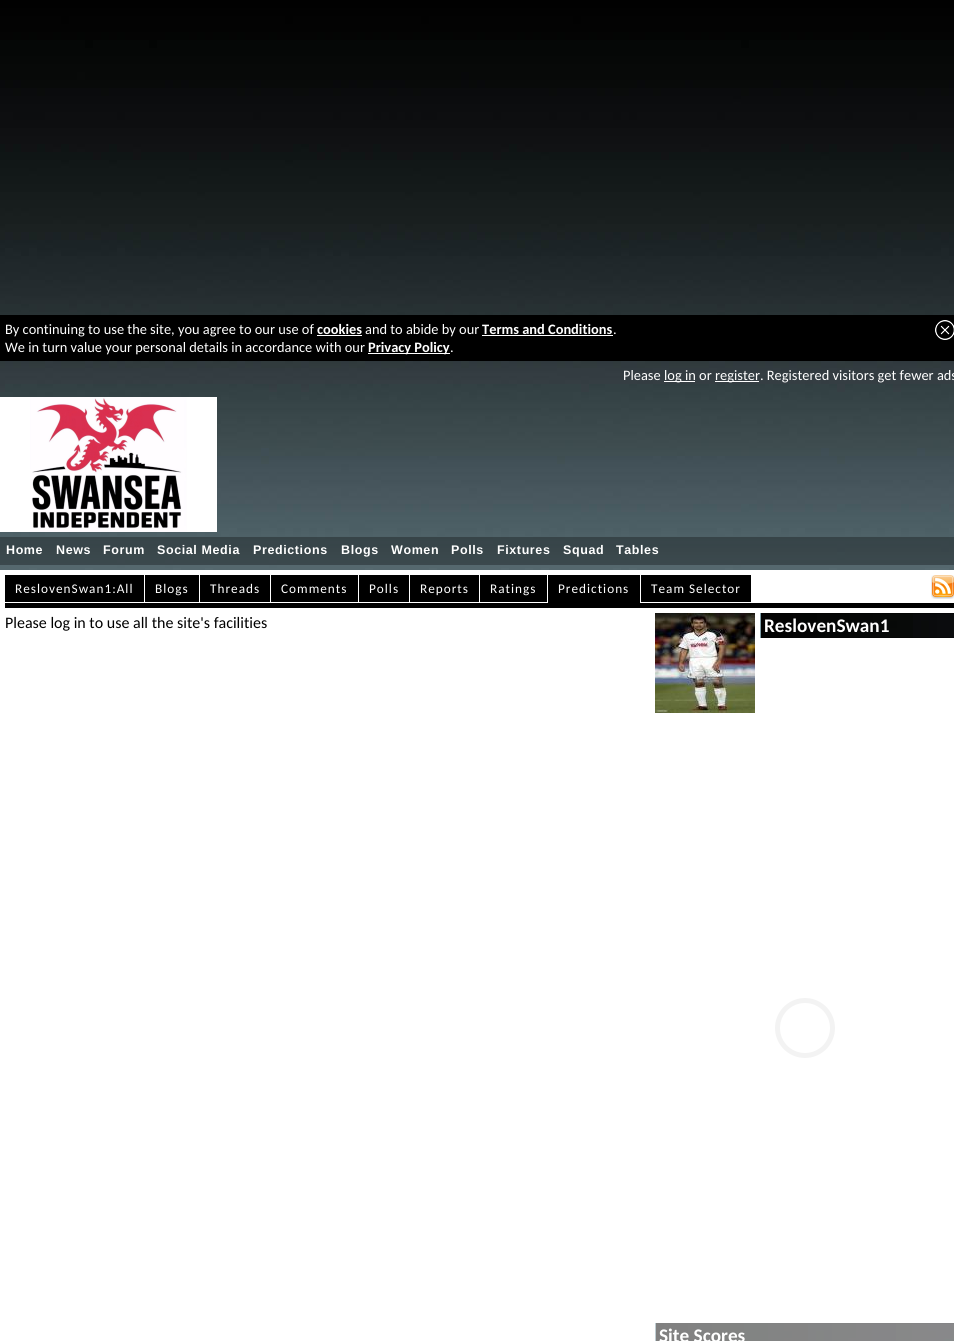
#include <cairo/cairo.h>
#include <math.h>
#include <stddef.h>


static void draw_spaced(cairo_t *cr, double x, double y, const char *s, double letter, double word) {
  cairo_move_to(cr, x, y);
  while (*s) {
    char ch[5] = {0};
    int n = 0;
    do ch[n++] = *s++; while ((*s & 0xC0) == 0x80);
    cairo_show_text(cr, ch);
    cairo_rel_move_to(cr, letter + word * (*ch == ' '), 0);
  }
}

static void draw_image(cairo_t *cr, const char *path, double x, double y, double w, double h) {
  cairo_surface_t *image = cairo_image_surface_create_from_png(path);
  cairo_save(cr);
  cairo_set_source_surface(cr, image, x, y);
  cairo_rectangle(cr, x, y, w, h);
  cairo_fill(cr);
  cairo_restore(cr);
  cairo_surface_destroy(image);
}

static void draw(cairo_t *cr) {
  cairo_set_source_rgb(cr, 1, 1, 1);
  cairo_paint(cr);
  draw_image(cr, "images/1.png", 0, 0, 954, 570);
  cairo_set_source_rgb(cr, 0, 0, 0);
  cairo_rectangle(cr, 0, 315, 954, 46);
  cairo_fill(cr);
  cairo_set_source_rgb(cr, 1, 1, 1);
  cairo_rectangle(cr, 317, 335, 45, 1);
  cairo_fill(cr);
  cairo_rectangle(cr, 482, 335, 131, 1);
  cairo_fill(cr);
  draw_image(cr, "images/2.png", 935, 320, 19, 20);
  cairo_rectangle(cr, 368, 353, 82, 1);
  cairo_fill(cr);
  cairo_rectangle(cr, 664, 381, 31, 1);
  cairo_fill(cr);
  cairo_rectangle(cr, 715, 381, 44, 1);
  cairo_fill(cr);
  draw_image(cr, "images/3.png", 0, 397, 217, 135);
  cairo_set_source_rgba(cr, 0, 0, 0, 0.3);
  cairo_rectangle(cr, 0, 537, 954, 28);
  cairo_fill(cr);
  cairo_set_source_rgb(cr, 0, 0, 0);
  cairo_rectangle(cr, 5, 575, 139, 27);
  cairo_fill(cr);
  cairo_rectangle(cr, 145, 575, 54, 27);
  cairo_fill(cr);
  cairo_rectangle(cr, 200, 575, 70, 27);
  cairo_fill(cr);
  cairo_rectangle(cr, 271, 575, 87, 27);
  cairo_fill(cr);
  cairo_rectangle(cr, 359, 575, 50, 27);
  cairo_fill(cr);
  cairo_rectangle(cr, 410, 575, 69, 27);
  cairo_fill(cr);
  cairo_rectangle(cr, 480, 575, 67, 27);
  cairo_fill(cr);
  cairo_rectangle(cr, 548, 575, 92, 28);
  cairo_fill(cr);
  cairo_rectangle(cr, 641, 575, 110, 27);
  cairo_fill(cr);
  cairo_rectangle(cr, 5, 603, 949, 5);
  cairo_fill(cr);
  draw_image(cr, "images/4.png", 931, 575, 23, 24);
  draw_image(cr, "images/5.png", 655, 613, 100, 100);
  draw_image(cr, "images/6.png", 760, 613, 194, 25);
  cairo_rectangle(cr, 760.5, 613.5, 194, 24);
  cairo_set_source_rgba(cr, 0, 0, 0, 0.3);
  cairo_set_line_width(cr, 1);
  cairo_stroke(cr);
  cairo_arc(cr, 805, 1028, 27.5, 0, 2 * M_PI);
  cairo_set_source_rgb(cr, 243 / 255.0, 243 / 255.0, 243 / 255.0);
  cairo_set_line_width(cr, 5);
  cairo_stroke(cr);
  draw_image(cr, "images/7.png", 655, 1323, 299, 18);
  cairo_rectangle(cr, 655.5, 1323.5, 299, 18);
  cairo_set_source_rgba(cr, 128 / 255.0, 128 / 255.0, 128 / 255.0, 0.3);
  cairo_set_line_width(cr, 1);
  cairo_stroke(cr);
  cairo_select_font_face(cr, "Carlito", CAIRO_FONT_SLANT_NORMAL, CAIRO_FONT_WEIGHT_NORMAL);
  cairo_set_font_size(cr, 14.4);
  cairo_set_source_rgb(cr, 1, 1, 1);
  cairo_move_to(cr, 5, 334);
  cairo_show_text(cr, "By continuing to use the site, you agree to our use of");
  cairo_select_font_face(cr, "Carlito", CAIRO_FONT_SLANT_NORMAL, CAIRO_FONT_WEIGHT_BOLD);
  cairo_move_to(cr, 317, 334);
  cairo_show_text(cr, "cookies");
  cairo_select_font_face(cr, "Carlito", CAIRO_FONT_SLANT_NORMAL, CAIRO_FONT_WEIGHT_NORMAL);
  cairo_move_to(cr, 365, 334);
  cairo_show_text(cr, "and to abide by our");
  cairo_select_font_face(cr, "Carlito", CAIRO_FONT_SLANT_NORMAL, CAIRO_FONT_WEIGHT_BOLD);
  cairo_move_to(cr, 482, 334);
  cairo_show_text(cr, "Terms and Conditions");
  cairo_select_font_face(cr, "Carlito", CAIRO_FONT_SLANT_NORMAL, CAIRO_FONT_WEIGHT_NORMAL);
  cairo_move_to(cr, 613, 334);
  cairo_show_text(cr, ".");
  cairo_move_to(cr, 5, 352);
  cairo_show_text(cr, "We in turn value your personal details in accordance with our");
  cairo_select_font_face(cr, "Carlito", CAIRO_FONT_SLANT_NORMAL, CAIRO_FONT_WEIGHT_BOLD);
  cairo_move_to(cr, 368, 352);
  cairo_show_text(cr, "Privacy Policy");
  cairo_select_font_face(cr, "Carlito", CAIRO_FONT_SLANT_NORMAL, CAIRO_FONT_WEIGHT_NORMAL);
  cairo_move_to(cr, 450, 352);
  cairo_show_text(cr, ".");
  cairo_move_to(cr, 623, 380);
  cairo_show_text(cr, "Please");
  cairo_move_to(cr, 664, 380);
  cairo_show_text(cr, "log in or");
  cairo_move_to(cr, 715, 380);
  cairo_show_text(cr, "register. Registered visitors get fewer ads");
  cairo_select_font_face(cr, "Liberation Sans", CAIRO_FONT_SLANT_NORMAL, CAIRO_FONT_WEIGHT_BOLD);
  cairo_set_font_size(cr, 12.5);
  draw_spaced(cr, 6, 554, "Home", 0.6, 0);
  draw_spaced(cr, 56, 554, "News", 0.6, 0);
  draw_spaced(cr, 103, 554, "Forum", 0.6, 0);
  draw_spaced(cr, 157, 554, "Social Media", 0.6, 0);
  draw_spaced(cr, 253, 554, "Predictions", 0.6, 0);
  draw_spaced(cr, 341, 554, "Blogs", 0.6, 0);
  draw_spaced(cr, 391, 554, "Women", 0.6, 0);
  draw_spaced(cr, 451, 554, "Polls", 0.6, 0);
  draw_spaced(cr, 497, 554, "Fixtures", 0.6, 0);
  draw_spaced(cr, 563, 554, "Squad", 0.6, 0);
  draw_spaced(cr, 616, 554, "Tables", 0.6, 0);
  cairo_select_font_face(cr, "Carlito", CAIRO_FONT_SLANT_NORMAL, CAIRO_FONT_WEIGHT_NORMAL);
  cairo_set_font_size(cr, 13.25);
  draw_spaced(cr, 15, 593, "ReslovenSwan1:All", 1, 0);
  draw_spaced(cr, 155, 593, "Blogs", 1, 0);
  draw_spaced(cr, 210, 593, "Threads", 1, 0);
  draw_spaced(cr, 281, 593, "Comments", 1, 0);
  draw_spaced(cr, 369, 593, "Polls", 1, 0);
  draw_spaced(cr, 420, 593, "Reports", 1, 0);
  draw_spaced(cr, 490, 593, "Ratings", 1, 0);
  draw_spaced(cr, 558, 593, "Predictions", 1, 0);
  draw_spaced(cr, 651, 593, "Team Selector", 1, 0);
  cairo_set_font_size(cr, 16);
  cairo_set_source_rgb(cr, 0, 0, 0);
  cairo_move_to(cr, 5, 628);
  cairo_show_text(cr, "Please log in to use all the site's facilities");
  cairo_select_font_face(cr, "Carlito", CAIRO_FONT_SLANT_NORMAL, CAIRO_FONT_WEIGHT_BOLD);
  cairo_set_font_size(cr, 19.25);
  cairo_set_source_rgb(cr, 1, 1, 1);
  cairo_move_to(cr, 764, 632);
  cairo_show_text(cr, "ReslovenSwan1");
  cairo_move_to(cr, 659, 1342);
  cairo_show_text(cr, "Site Scores");
}

int main(void) {
  cairo_surface_t *surface = cairo_image_surface_create(CAIRO_FORMAT_RGB24, 954, 1341);
  cairo_t *cr = cairo_create(surface);
  cairo_font_options_t *options = cairo_font_options_create();
  cairo_font_options_set_hint_metrics(options, CAIRO_HINT_METRICS_OFF);
  cairo_font_options_set_hint_style(options, CAIRO_HINT_STYLE_NONE);
  cairo_set_font_options(cr, options);
  cairo_set_miter_limit(cr, 4);
  draw(cr);
  cairo_surface_write_to_png(surface, "out.png");
  cairo_font_options_destroy(options);
  cairo_destroy(cr);
  cairo_surface_destroy(surface);
  return 0;
}
